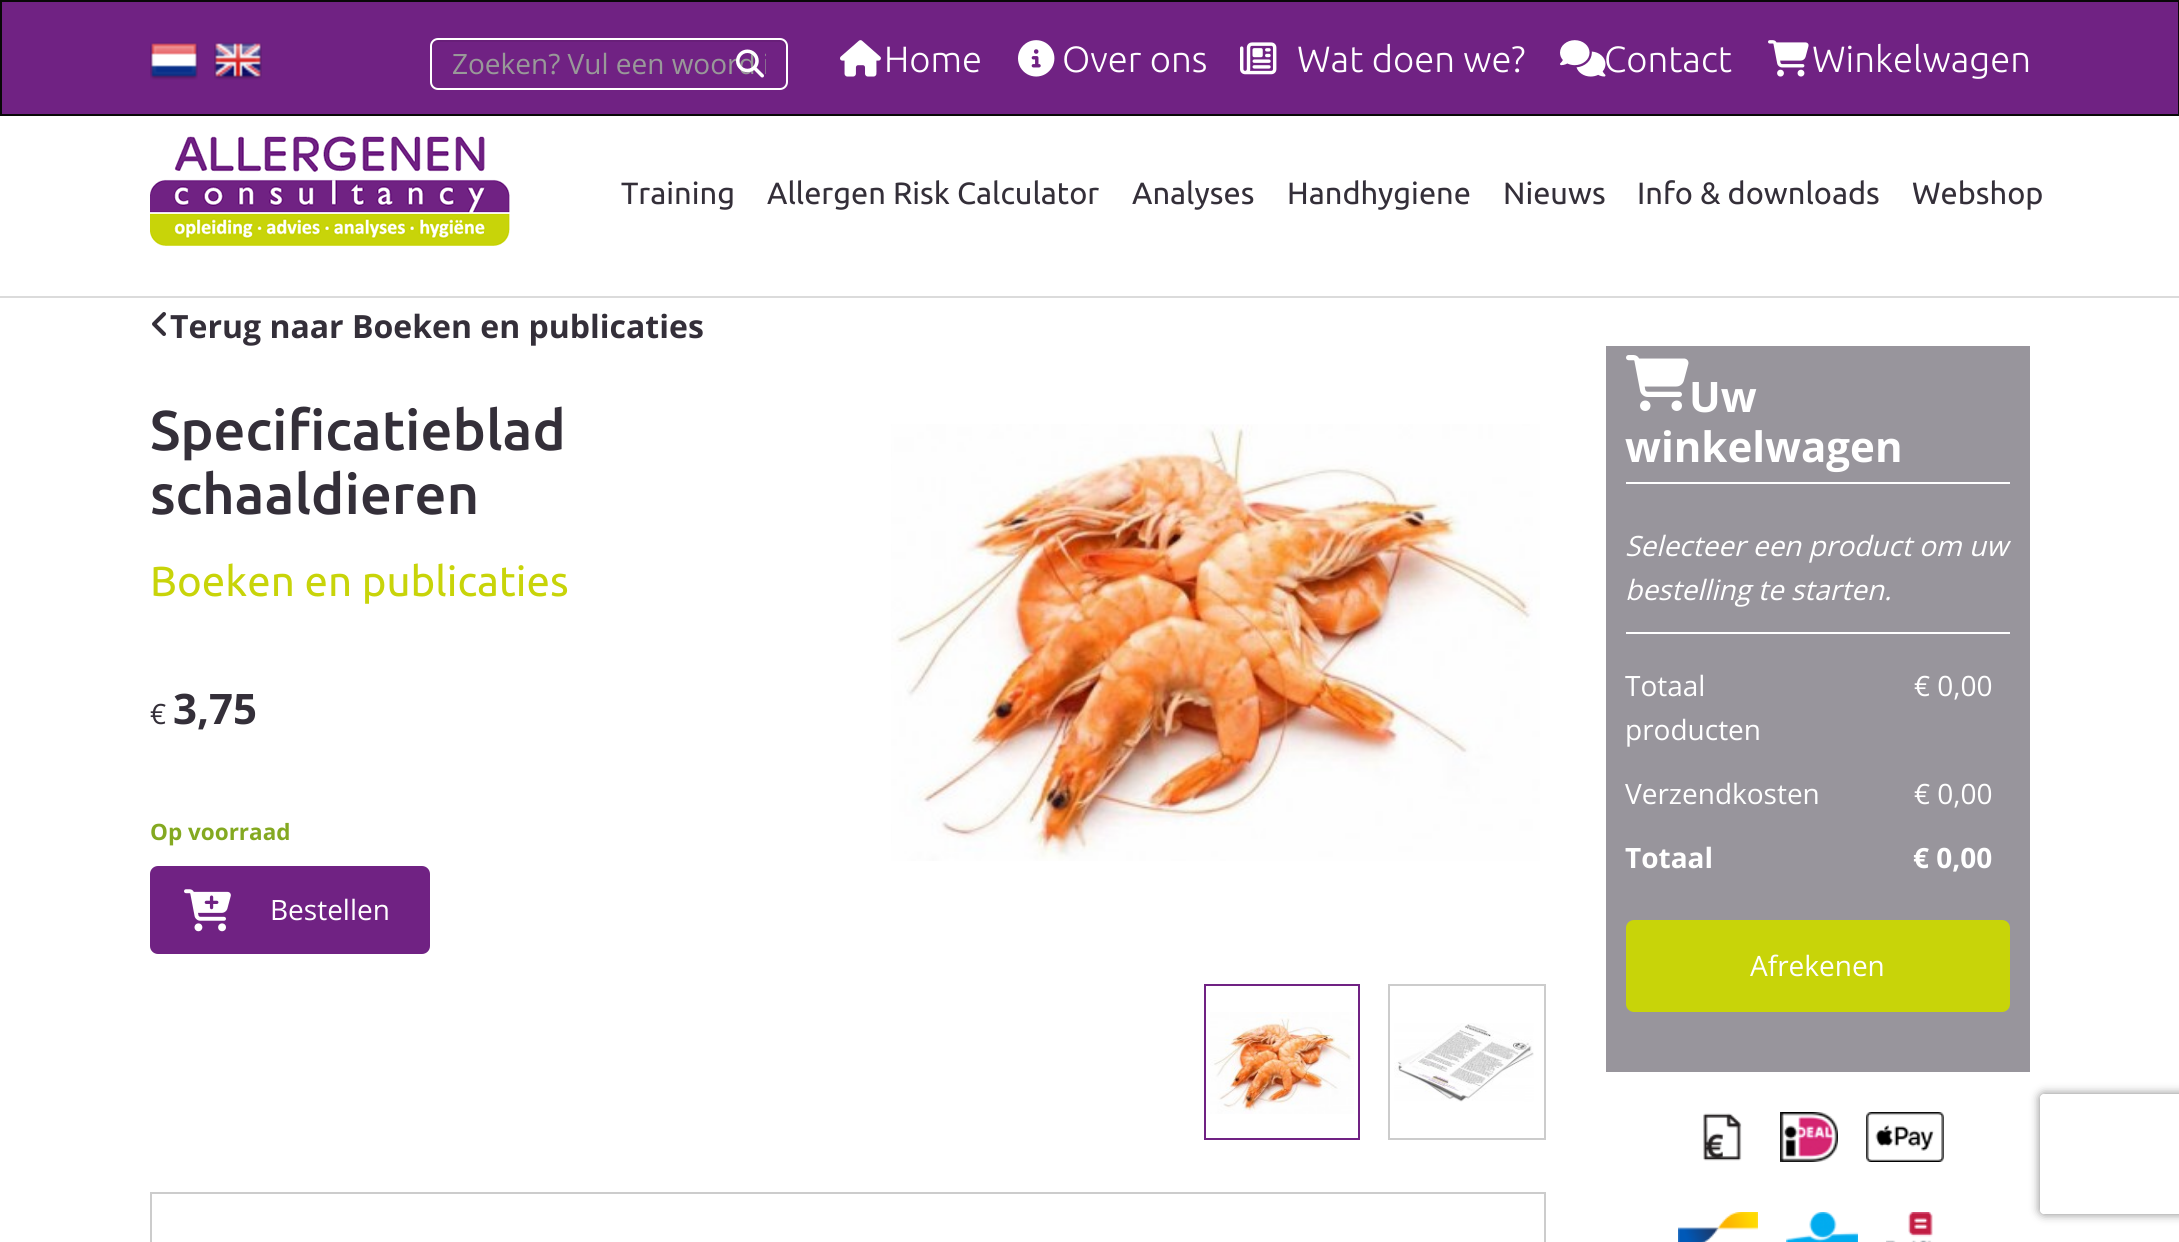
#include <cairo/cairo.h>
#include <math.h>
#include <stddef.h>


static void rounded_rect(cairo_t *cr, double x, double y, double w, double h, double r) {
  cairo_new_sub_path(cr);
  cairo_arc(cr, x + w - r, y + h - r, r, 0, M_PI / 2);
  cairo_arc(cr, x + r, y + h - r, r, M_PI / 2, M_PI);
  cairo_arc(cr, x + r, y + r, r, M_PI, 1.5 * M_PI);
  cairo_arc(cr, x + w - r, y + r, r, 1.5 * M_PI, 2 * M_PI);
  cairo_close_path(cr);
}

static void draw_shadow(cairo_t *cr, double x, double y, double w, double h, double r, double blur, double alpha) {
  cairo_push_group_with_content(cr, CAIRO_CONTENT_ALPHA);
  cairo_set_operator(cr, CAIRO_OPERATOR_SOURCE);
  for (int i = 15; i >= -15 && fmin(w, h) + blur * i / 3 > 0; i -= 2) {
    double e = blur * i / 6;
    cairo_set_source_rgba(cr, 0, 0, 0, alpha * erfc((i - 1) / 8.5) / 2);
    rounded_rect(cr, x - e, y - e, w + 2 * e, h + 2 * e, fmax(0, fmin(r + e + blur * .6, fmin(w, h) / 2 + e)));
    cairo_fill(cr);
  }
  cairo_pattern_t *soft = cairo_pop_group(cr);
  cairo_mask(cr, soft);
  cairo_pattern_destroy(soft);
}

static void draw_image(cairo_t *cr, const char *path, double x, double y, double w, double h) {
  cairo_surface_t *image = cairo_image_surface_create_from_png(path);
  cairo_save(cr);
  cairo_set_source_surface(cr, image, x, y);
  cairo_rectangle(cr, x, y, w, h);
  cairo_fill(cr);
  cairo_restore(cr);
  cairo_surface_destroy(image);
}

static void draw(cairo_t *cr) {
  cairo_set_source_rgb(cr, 1, 1, 1);
  cairo_paint(cr);
  cairo_set_source_rgb(cr, 219 / 255.0, 219 / 255.0, 219 / 255.0);
  cairo_rectangle(cr, 0, 296, 2179, 2);
  cairo_fill(cr);
  cairo_set_source_rgb(cr, 112 / 255.0, 34 / 255.0, 131 / 255.0);
  cairo_rectangle(cr, 1, 1, 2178, 114);
  cairo_fill_preserve(cr);
  cairo_set_source_rgb(cr, 8 / 255.0, 8 / 255.0, 8 / 255.0);
  cairo_stroke(cr);
  draw_image(cr, "images/1.png", 150, 42, 48, 38);
  draw_image(cr, "images/2.png", 214, 42, 48, 38);
  cairo_set_source_rgb(cr, 104 / 255.0, 31 / 255.0, 121 / 255.0);
  cairo_new_path(cr);
  cairo_move_to(cr, 438, 42);
  cairo_line_to(cr, 780, 42);
  cairo_curve_to(cr, 783, 42, 786, 45, 786, 48);
  cairo_line_to(cr, 786, 46);
  cairo_curve_to(cr, 786, 43, 783, 40, 780, 40);
  cairo_line_to(cr, 438, 40);
  cairo_curve_to(cr, 435, 40, 432, 43, 432, 46);
  cairo_line_to(cr, 432, 48);
  cairo_curve_to(cr, 432, 45, 435, 42, 438, 42);
  cairo_close_path(cr);
  cairo_fill(cr);
  rounded_rect(cr, 431, 39, 356, 50, 7);
  cairo_set_source_rgb(cr, 1, 1, 1);
  cairo_stroke(cr);
  draw_image(cr, "images/4.png", 840, 40, 41, 37);
  draw_image(cr, "images/5.png", 1018, 40, 37, 37);
  draw_image(cr, "images/6.png", 1240, 42, 37, 33);
  draw_image(cr, "images/7.png", 1560, 40, 46, 37);
  draw_image(cr, "images/8.png", 1768, 40, 41, 37);
  draw_image(cr, "images/9.png", 150, 136, 360, 110);
  draw_image(cr, "images/10.png", 152, 312, 14, 24);
  cairo_set_source_rgb(cr, 112 / 255.0, 34 / 255.0, 131 / 255.0);
  rounded_rect(cr, 150, 866, 280, 88, 8);
  cairo_fill(cr);
  draw_image(cr, "images/11.png", 184, 889, 47, 43);
  draw_image(cr, "images/12.png", 891, 424, 649, 437);
  cairo_rectangle(cr, 1205, 985, 154, 154);
  cairo_stroke(cr);
  draw_image(cr, "images/13.png", 1210, 1012, 144, 102);
  cairo_rectangle(cr, 1389, 985, 156, 154);
  cairo_set_source_rgb(cr, 204 / 255.0, 204 / 255.0, 204 / 255.0);
  cairo_stroke(cr);
  draw_image(cr, "images/14.png", 1394, 1023, 140, 79);
  cairo_rectangle(cr, 151, 1193, 1394, 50);
  cairo_stroke(cr);
  cairo_set_source_rgb(cr, 152 / 255.0, 149 / 255.0, 156 / 255.0);
  cairo_rectangle(cr, 1606, 346, 424, 726);
  cairo_fill(cr);
  cairo_set_source_rgb(cr, 1, 1, 1);
  cairo_rectangle(cr, 1626, 482, 384, 2);
  cairo_fill(cr);
  draw_image(cr, "images/15.png", 1626, 355, 63, 56);
  cairo_rectangle(cr, 1626, 632, 384, 2);
  cairo_fill(cr);
  cairo_set_source_rgb(cr, 200 / 255.0, 212 / 255.0, 9 / 255.0);
  rounded_rect(cr, 1627, 921, 382, 90, 7);
  cairo_fill_preserve(cr);
  cairo_stroke(cr);
  draw_image(cr, "images/16.png", 1703, 1113, 39, 48);
  draw_image(cr, "images/17.png", 1780, 1112, 58, 50);
  draw_image(cr, "images/18.png", 1866, 1112, 78, 50);
  draw_image(cr, "images/19.png", 1678, 1212, 80, 30);
  draw_image(cr, "images/20.png", 1786, 1212, 72, 30);
  draw_image(cr, "images/21.png", 1886, 1212, 47, 30);
  cairo_save(cr);
  cairo_set_fill_rule(cr, CAIRO_FILL_RULE_EVEN_ODD);
  cairo_new_path(cr);
  cairo_move_to(cr, 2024, 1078);
  cairo_line_to(cr, 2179, 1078);
  cairo_line_to(cr, 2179, 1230);
  cairo_line_to(cr, 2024, 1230);
  cairo_close_path(cr);
  cairo_move_to(cr, 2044, 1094);
  cairo_line_to(cr, 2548, 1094);
  cairo_curve_to(cr, 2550, 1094, 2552, 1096, 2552, 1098);
  cairo_line_to(cr, 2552, 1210);
  cairo_curve_to(cr, 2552, 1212, 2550, 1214, 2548, 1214);
  cairo_line_to(cr, 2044, 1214);
  cairo_curve_to(cr, 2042, 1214, 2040, 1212, 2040, 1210);
  cairo_line_to(cr, 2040, 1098);
  cairo_curve_to(cr, 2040, 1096, 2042, 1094, 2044, 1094);
  cairo_close_path(cr);
  cairo_clip(cr);
  cairo_set_source_rgb(cr, 128 / 255.0, 128 / 255.0, 128 / 255.0);
  draw_shadow(cr, 2040, 1094, 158, 120, 4, 5, 1);
  cairo_restore(cr);
  cairo_save(cr);
  cairo_rectangle(cr, 452, 44, 314, 38);
  cairo_clip(cr);
  cairo_select_font_face(cr, "Open Sans", CAIRO_FONT_SLANT_NORMAL, CAIRO_FONT_WEIGHT_NORMAL);
  cairo_set_font_size(cr, 28);
  cairo_set_source_rgb(cr, 153 / 255.0, 153 / 255.0, 153 / 255.0);
  cairo_move_to(cr, 452, 74);
  cairo_show_text(cr, "Zoeken? Vul een woord i");
  cairo_restore(cr);
  draw_image(cr, "images/3.png", 736, 49, 28, 29);
  cairo_select_font_face(cr, "Ubuntu Light", CAIRO_FONT_SLANT_NORMAL, CAIRO_FONT_WEIGHT_NORMAL);
  cairo_set_font_size(cr, 36.5);
  cairo_set_source_rgb(cr, 1, 1, 1);
  cairo_move_to(cr, 884, 72);
  cairo_show_text(cr, "Home");
  cairo_move_to(cr, 1062, 72);
  cairo_show_text(cr, "Over ons");
  cairo_move_to(cr, 1297, 72);
  cairo_show_text(cr, "Wat doen we?");
  cairo_move_to(cr, 1604, 72);
  cairo_show_text(cr, "Contact");
  cairo_move_to(cr, 1812, 72);
  cairo_show_text(cr, "Winkelwagen");
  cairo_select_font_face(cr, "Ubuntu", CAIRO_FONT_SLANT_NORMAL, CAIRO_FONT_WEIGHT_NORMAL);
  cairo_set_font_size(cr, 30.75);
  cairo_set_source_rgb(cr, 52 / 255.0, 47 / 255.0, 57 / 255.0);
  cairo_move_to(cr, 621, 204);
  cairo_show_text(cr, "Training");
  cairo_move_to(cr, 767, 204);
  cairo_show_text(cr, "Allergen Risk Calculator");
  cairo_move_to(cr, 1132, 204);
  cairo_show_text(cr, "Analyses");
  cairo_move_to(cr, 1287, 204);
  cairo_show_text(cr, "Handhygiene");
  cairo_move_to(cr, 1503, 204);
  cairo_show_text(cr, "Nieuws");
  cairo_move_to(cr, 1637, 204);
  cairo_show_text(cr, "Info & downloads");
  cairo_move_to(cr, 1912, 204);
  cairo_show_text(cr, "Webshop");
  cairo_select_font_face(cr, "Open Sans", CAIRO_FONT_SLANT_NORMAL, CAIRO_FONT_WEIGHT_BOLD);
  cairo_set_font_size(cr, 32);
  cairo_move_to(cr, 170, 338);
  cairo_show_text(cr, "Terug naar Boeken en publicaties");
  cairo_select_font_face(cr, "Ubuntu Medium", CAIRO_FONT_SLANT_NORMAL, CAIRO_FONT_WEIGHT_NORMAL);
  cairo_set_font_size(cr, 56);
  cairo_move_to(cr, 150, 450);
  cairo_show_text(cr, "Specificatieblad");
  cairo_move_to(cr, 150, 514);
  cairo_show_text(cr, "schaaldieren");
  cairo_select_font_face(cr, "Ubuntu", CAIRO_FONT_SLANT_NORMAL, CAIRO_FONT_WEIGHT_NORMAL);
  cairo_set_font_size(cr, 42);
  cairo_set_source_rgb(cr, 200 / 255.0, 212 / 255.0, 9 / 255.0);
  cairo_move_to(cr, 150, 596);
  cairo_show_text(cr, "Boeken en publicaties");
  cairo_select_font_face(cr, "Open Sans", CAIRO_FONT_SLANT_NORMAL, CAIRO_FONT_WEIGHT_NORMAL);
  cairo_set_font_size(cr, 28);
  cairo_set_source_rgb(cr, 52 / 255.0, 47 / 255.0, 57 / 255.0);
  cairo_move_to(cr, 150, 724);
  cairo_show_text(cr, "€");
  cairo_select_font_face(cr, "Open Sans", CAIRO_FONT_SLANT_NORMAL, CAIRO_FONT_WEIGHT_BOLD);
  cairo_set_font_size(cr, 42);
  cairo_move_to(cr, 173, 724);
  cairo_show_text(cr, "3,75");
  cairo_set_font_size(cr, 22.5);
  cairo_set_source_rgb(cr, 132 / 255.0, 169 / 255.0, 33 / 255.0);
  cairo_move_to(cr, 150, 840);
  cairo_show_text(cr, "Op voorraad");
  cairo_select_font_face(cr, "Open Sans", CAIRO_FONT_SLANT_NORMAL, CAIRO_FONT_WEIGHT_NORMAL);
  cairo_set_font_size(cr, 28);
  cairo_set_source_rgb(cr, 1, 1, 1);
  cairo_move_to(cr, 270, 920);
  cairo_show_text(cr, "Bestellen");
  cairo_select_font_face(cr, "Open Sans", CAIRO_FONT_SLANT_NORMAL, CAIRO_FONT_WEIGHT_BOLD);
  cairo_set_font_size(cr, 42);
  cairo_move_to(cr, 1689, 412);
  cairo_show_text(cr, "Uw");
  cairo_move_to(cr, 1625, 462);
  cairo_show_text(cr, "winkelwagen");
  cairo_select_font_face(cr, "Open Sans", CAIRO_FONT_SLANT_ITALIC, CAIRO_FONT_WEIGHT_NORMAL);
  cairo_set_font_size(cr, 28);
  cairo_move_to(cr, 1625, 556);
  cairo_show_text(cr, "Selecteer een product om uw");
  cairo_move_to(cr, 1625, 600);
  cairo_show_text(cr, "bestelling te starten.");
  cairo_select_font_face(cr, "Open Sans", CAIRO_FONT_SLANT_NORMAL, CAIRO_FONT_WEIGHT_NORMAL);
  cairo_move_to(cr, 1625, 696);
  cairo_show_text(cr, "Totaal");
  cairo_move_to(cr, 1625, 740);
  cairo_show_text(cr, "producten");
  cairo_move_to(cr, 1914, 696);
  cairo_show_text(cr, "€ 0,00");
  cairo_move_to(cr, 1625, 804);
  cairo_show_text(cr, "Verzendkosten");
  cairo_move_to(cr, 1914, 804);
  cairo_show_text(cr, "€ 0,00");
  cairo_select_font_face(cr, "Open Sans", CAIRO_FONT_SLANT_NORMAL, CAIRO_FONT_WEIGHT_BOLD);
  cairo_move_to(cr, 1625, 868);
  cairo_show_text(cr, "Totaal");
  cairo_move_to(cr, 1913, 868);
  cairo_show_text(cr, "€ 0,00");
  cairo_select_font_face(cr, "Open Sans", CAIRO_FONT_SLANT_NORMAL, CAIRO_FONT_WEIGHT_NORMAL);
  cairo_move_to(cr, 1750, 976);
  cairo_show_text(cr, "Afrekenen");
}

int main(void) {
  cairo_surface_t *surface = cairo_image_surface_create(CAIRO_FORMAT_RGB24, 2179, 1242);
  cairo_t *cr = cairo_create(surface);
  cairo_font_options_t *options = cairo_font_options_create();
  cairo_font_options_set_hint_metrics(options, CAIRO_HINT_METRICS_OFF);
  cairo_font_options_set_hint_style(options, CAIRO_HINT_STYLE_NONE);
  cairo_set_font_options(cr, options);
  cairo_set_miter_limit(cr, 4);
  draw(cr);
  cairo_surface_write_to_png(surface, "out.png");
  cairo_font_options_destroy(options);
  cairo_destroy(cr);
  cairo_surface_destroy(surface);
  return 0;
}
